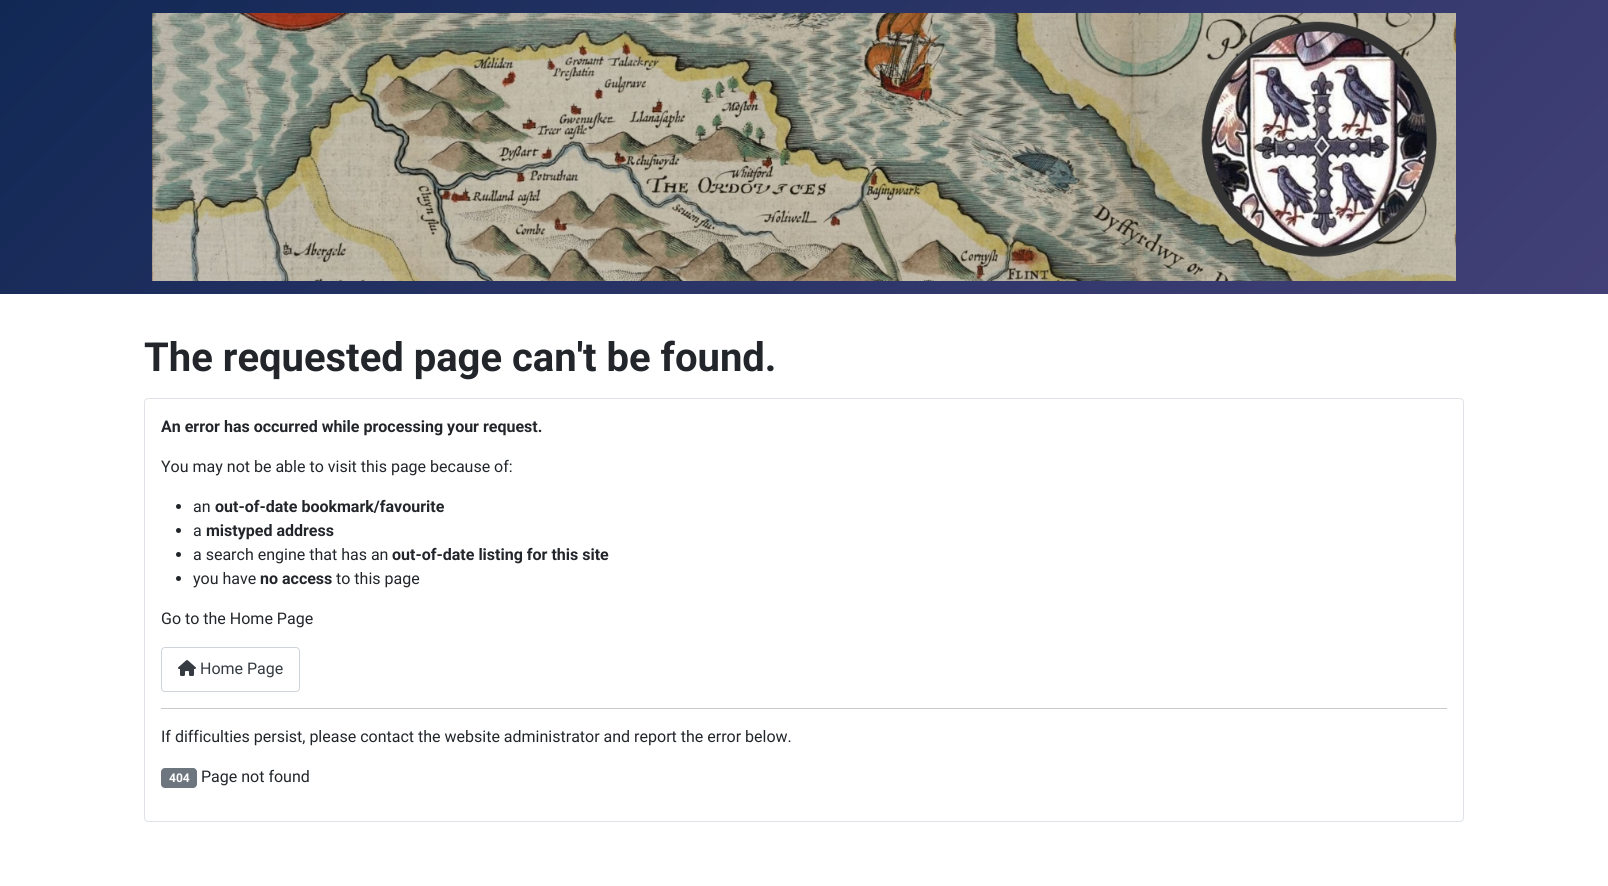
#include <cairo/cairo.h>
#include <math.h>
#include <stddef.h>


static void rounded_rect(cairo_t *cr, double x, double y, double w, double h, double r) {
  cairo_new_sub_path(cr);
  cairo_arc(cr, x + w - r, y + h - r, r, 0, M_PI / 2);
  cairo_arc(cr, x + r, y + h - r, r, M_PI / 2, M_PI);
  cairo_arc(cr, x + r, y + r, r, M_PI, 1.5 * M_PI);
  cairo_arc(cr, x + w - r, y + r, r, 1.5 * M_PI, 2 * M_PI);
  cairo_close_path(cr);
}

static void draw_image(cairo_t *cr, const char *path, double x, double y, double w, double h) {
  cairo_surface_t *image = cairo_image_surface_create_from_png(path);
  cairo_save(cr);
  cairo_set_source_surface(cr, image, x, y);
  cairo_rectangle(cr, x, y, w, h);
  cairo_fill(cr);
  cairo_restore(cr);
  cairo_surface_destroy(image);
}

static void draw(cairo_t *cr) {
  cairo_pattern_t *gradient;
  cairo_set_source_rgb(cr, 1, 1, 1);
  cairo_paint(cr);
  gradient = cairo_pattern_create_linear(328, -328, 1280, 623);
  cairo_pattern_add_color_stop_rgba(gradient, 0, 17 / 255.0, 40 / 255.0, 85 / 255.0, 1);
  cairo_pattern_add_color_stop_rgba(gradient, 1, 66 / 255.0, 64 / 255.0, 119 / 255.0, 1);
  cairo_set_source(cr, gradient);
  cairo_pattern_destroy(gradient);
  cairo_rectangle(cr, 0, 0, 1608, 294);
  cairo_fill(cr);
  draw_image(cr, "images/1.png", 152, 13, 1304, 268);
  rounded_rect(cr, 144.5, 398.5, 1319, 423, 3.5);
  cairo_set_source_rgb(cr, 223 / 255.0, 227 / 255.0, 231 / 255.0);
  cairo_set_line_width(cr, 1);
  cairo_stroke(cr);
  cairo_set_source_rgb(cr, 34 / 255.0, 38 / 255.0, 42 / 255.0);
  cairo_arc(cr, 178.5, 506.5, 2.5, 0, 2 * M_PI);
  cairo_fill(cr);
  cairo_arc(cr, 178.5, 530.5, 2.5, 0, 2 * M_PI);
  cairo_fill(cr);
  cairo_arc(cr, 178.5, 554.5, 2.5, 0, 2 * M_PI);
  cairo_fill(cr);
  cairo_arc(cr, 178.5, 578.5, 2.5, 0, 2 * M_PI);
  cairo_fill(cr);
  rounded_rect(cr, 161.5, 647.5, 138, 44, 3.5);
  cairo_set_source_rgb(cr, 206 / 255.0, 212 / 255.0, 218 / 255.0);
  cairo_stroke(cr);
  draw_image(cr, "images/2.png", 178, 660, 18, 16);
  cairo_set_source_rgb(cr, 200 / 255.0, 201 / 255.0, 202 / 255.0);
  cairo_rectangle(cr, 161, 708, 1286, 1);
  cairo_fill(cr);
  cairo_set_source_rgb(cr, 109 / 255.0, 117 / 255.0, 126 / 255.0);
  rounded_rect(cr, 161, 768, 36, 20, 4);
  cairo_fill(cr);
  cairo_select_font_face(cr, "Roboto", CAIRO_FONT_SLANT_NORMAL, CAIRO_FONT_WEIGHT_BOLD);
  cairo_set_font_size(cr, 40);
  cairo_set_source_rgb(cr, 34 / 255.0, 38 / 255.0, 42 / 255.0);
  cairo_move_to(cr, 144, 371);
  cairo_show_text(cr, "The requested page can't be found.");
  cairo_set_font_size(cr, 16);
  cairo_move_to(cr, 161, 432);
  cairo_show_text(cr, "An error has occurred while processing your request.");
  cairo_select_font_face(cr, "Roboto", CAIRO_FONT_SLANT_NORMAL, CAIRO_FONT_WEIGHT_NORMAL);
  cairo_move_to(cr, 161, 472);
  cairo_show_text(cr, "You may not be able to visit this page because of:");
  cairo_move_to(cr, 193, 512);
  cairo_show_text(cr, "an");
  cairo_select_font_face(cr, "Roboto", CAIRO_FONT_SLANT_NORMAL, CAIRO_FONT_WEIGHT_BOLD);
  cairo_move_to(cr, 215, 512);
  cairo_show_text(cr, "out-of-date bookmark/favourite");
  cairo_select_font_face(cr, "Roboto", CAIRO_FONT_SLANT_NORMAL, CAIRO_FONT_WEIGHT_NORMAL);
  cairo_move_to(cr, 193, 536);
  cairo_show_text(cr, "a");
  cairo_select_font_face(cr, "Roboto", CAIRO_FONT_SLANT_NORMAL, CAIRO_FONT_WEIGHT_BOLD);
  cairo_move_to(cr, 206, 536);
  cairo_show_text(cr, "mistyped address");
  cairo_select_font_face(cr, "Roboto", CAIRO_FONT_SLANT_NORMAL, CAIRO_FONT_WEIGHT_NORMAL);
  cairo_move_to(cr, 193, 560);
  cairo_show_text(cr, "a search engine that has an");
  cairo_select_font_face(cr, "Roboto", CAIRO_FONT_SLANT_NORMAL, CAIRO_FONT_WEIGHT_BOLD);
  cairo_move_to(cr, 392, 560);
  cairo_show_text(cr, "out-of-date listing for this site");
  cairo_select_font_face(cr, "Roboto", CAIRO_FONT_SLANT_NORMAL, CAIRO_FONT_WEIGHT_NORMAL);
  cairo_move_to(cr, 193, 584);
  cairo_show_text(cr, "you have");
  cairo_select_font_face(cr, "Roboto", CAIRO_FONT_SLANT_NORMAL, CAIRO_FONT_WEIGHT_BOLD);
  cairo_move_to(cr, 260, 584);
  cairo_show_text(cr, "no access");
  cairo_select_font_face(cr, "Roboto", CAIRO_FONT_SLANT_NORMAL, CAIRO_FONT_WEIGHT_NORMAL);
  cairo_move_to(cr, 336, 584);
  cairo_show_text(cr, "to this page");
  cairo_move_to(cr, 161, 624);
  cairo_show_text(cr, "Go to the Home Page");
  cairo_set_source_rgb(cr, 53 / 255.0, 59 / 255.0, 65 / 255.0);
  cairo_move_to(cr, 200, 674);
  cairo_show_text(cr, "Home Page");
  cairo_set_source_rgb(cr, 34 / 255.0, 38 / 255.0, 42 / 255.0);
  cairo_move_to(cr, 161, 742);
  cairo_show_text(cr, "If difficulties persist, please contact the website administrator and report the error below.");
  cairo_select_font_face(cr, "Roboto", CAIRO_FONT_SLANT_NORMAL, CAIRO_FONT_WEIGHT_BOLD);
  cairo_set_font_size(cr, 12);
  cairo_set_source_rgb(cr, 1, 1, 1);
  cairo_move_to(cr, 169, 782);
  cairo_show_text(cr, "404");
  cairo_select_font_face(cr, "Roboto", CAIRO_FONT_SLANT_NORMAL, CAIRO_FONT_WEIGHT_NORMAL);
  cairo_set_font_size(cr, 16);
  cairo_set_source_rgb(cr, 34 / 255.0, 38 / 255.0, 42 / 255.0);
  cairo_move_to(cr, 201, 782);
  cairo_show_text(cr, "Page not found");
}

int main(void) {
  cairo_surface_t *surface = cairo_image_surface_create(CAIRO_FORMAT_RGB24, 1608, 886);
  cairo_t *cr = cairo_create(surface);
  cairo_font_options_t *options = cairo_font_options_create();
  cairo_font_options_set_hint_metrics(options, CAIRO_HINT_METRICS_OFF);
  cairo_font_options_set_hint_style(options, CAIRO_HINT_STYLE_NONE);
  cairo_set_font_options(cr, options);
  cairo_set_miter_limit(cr, 4);
  draw(cr);
  cairo_surface_write_to_png(surface, "out.png");
  cairo_font_options_destroy(options);
  cairo_destroy(cr);
  cairo_surface_destroy(surface);
  return 0;
}
